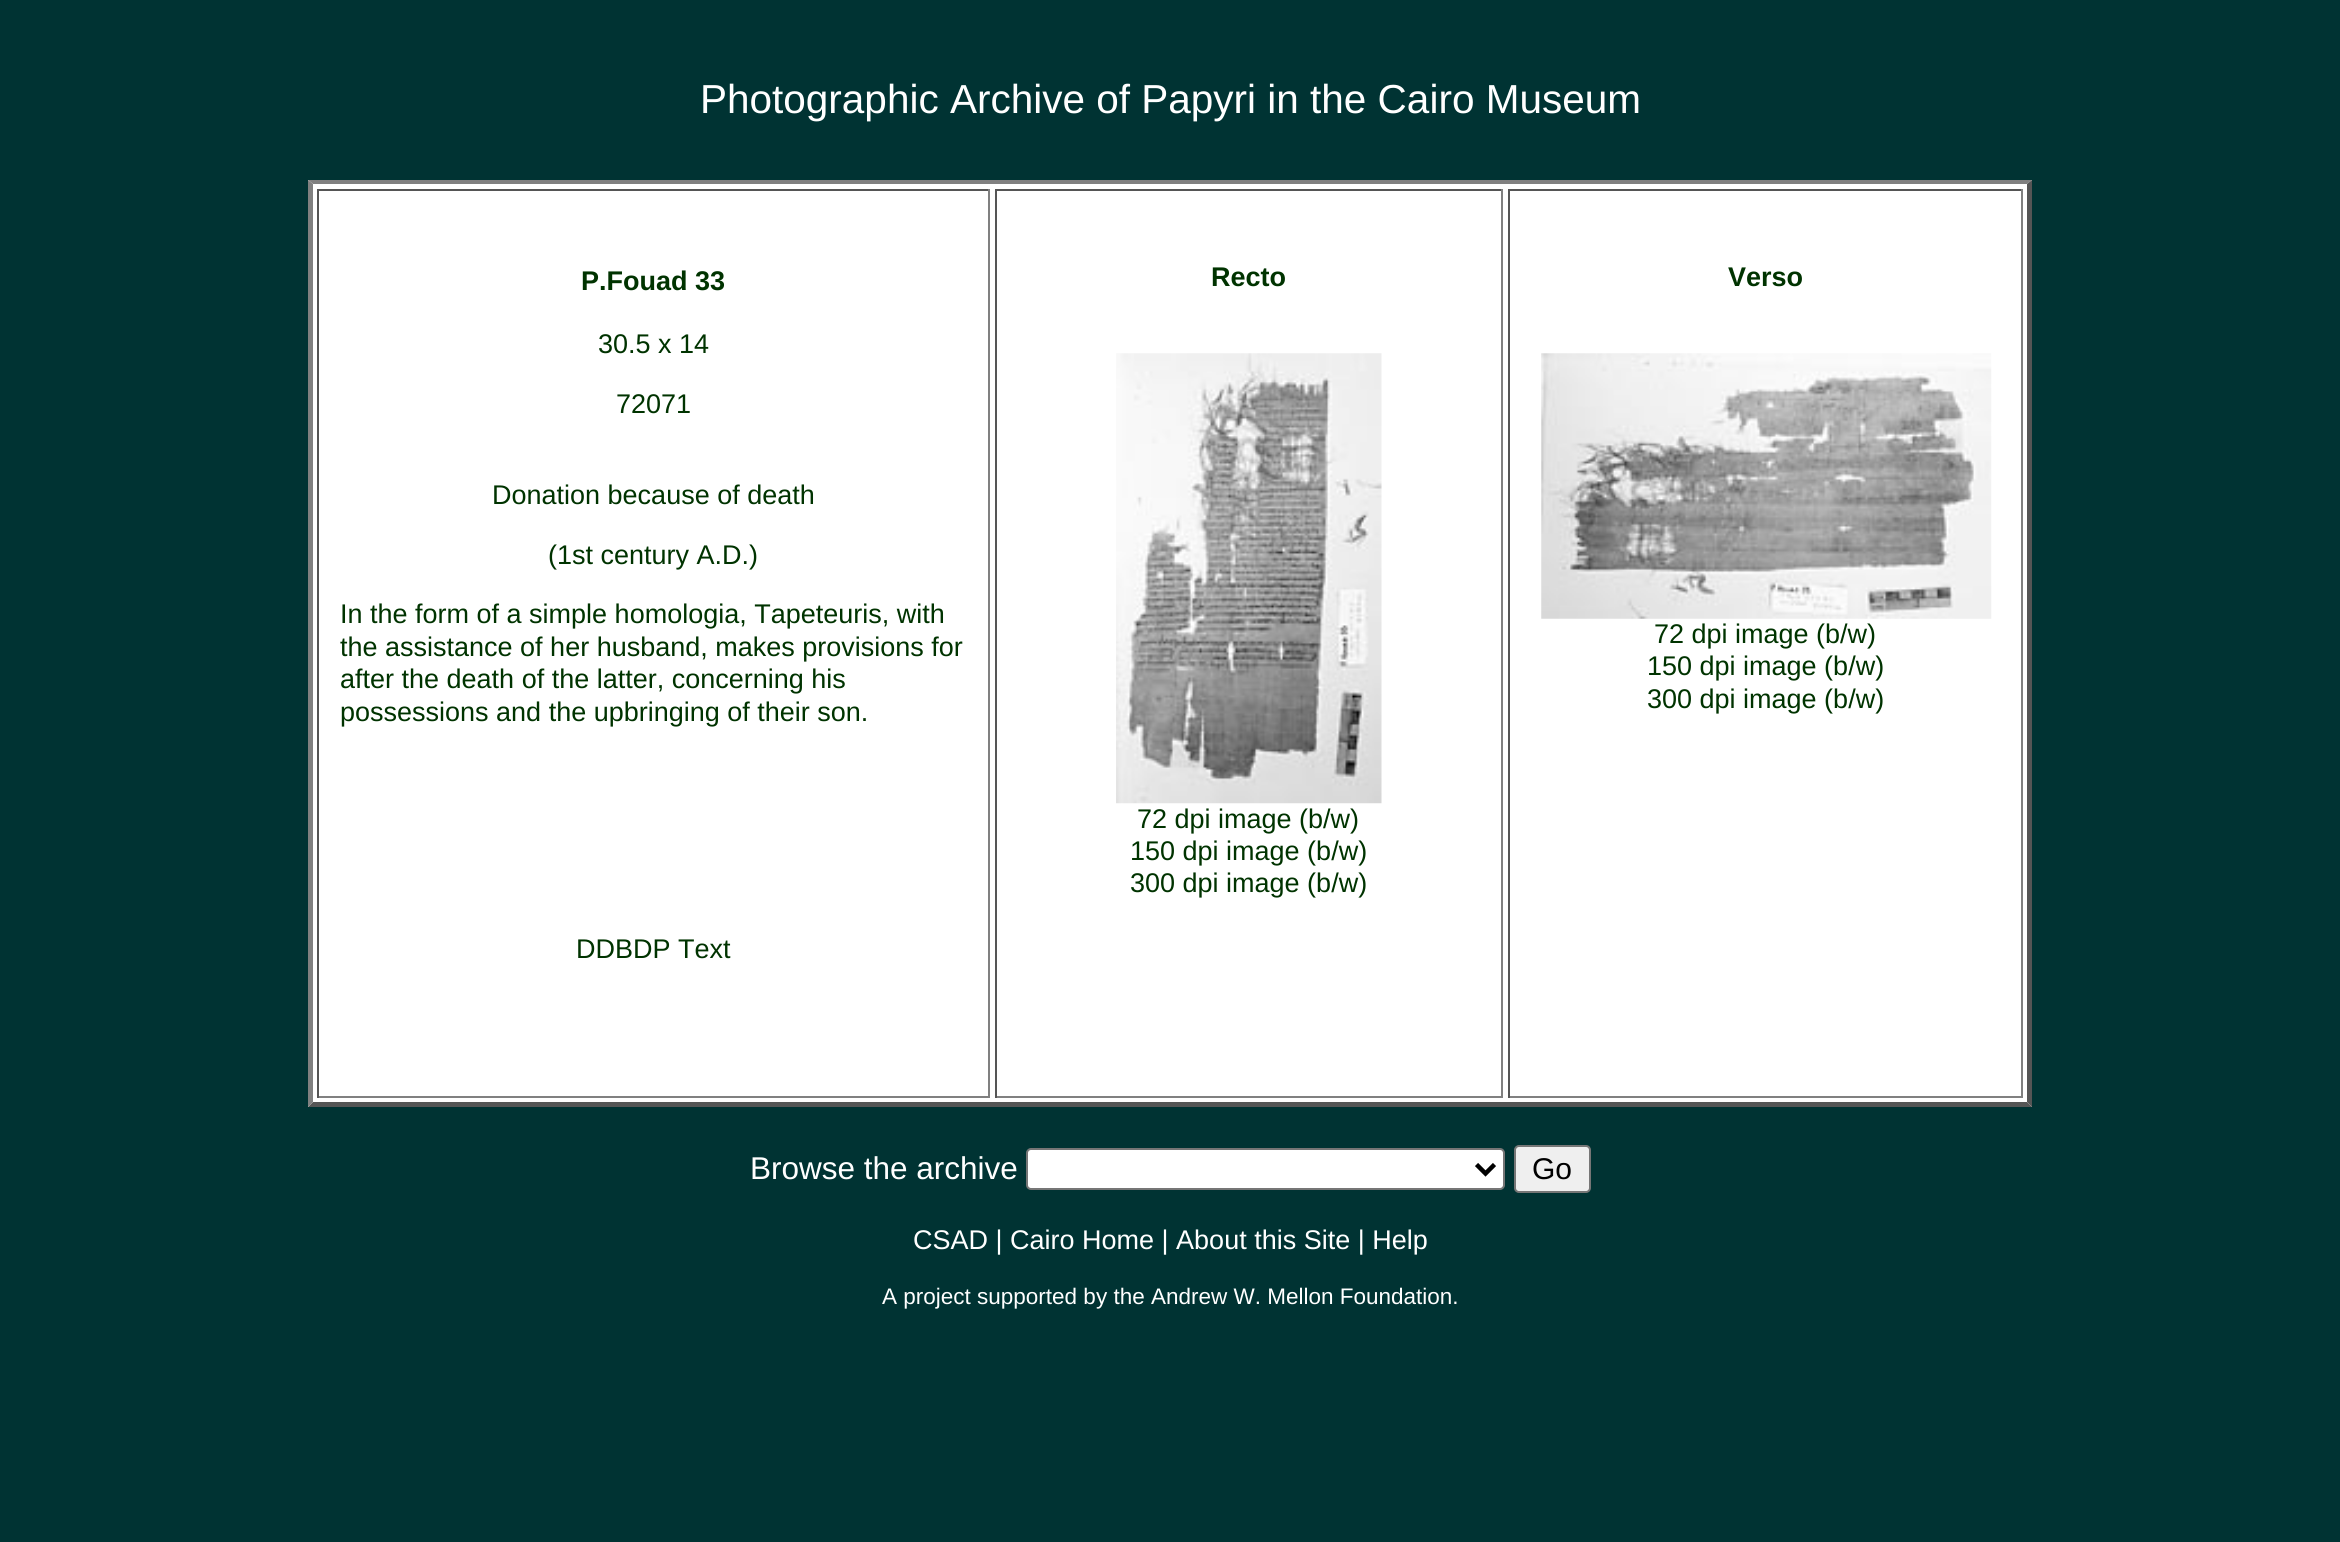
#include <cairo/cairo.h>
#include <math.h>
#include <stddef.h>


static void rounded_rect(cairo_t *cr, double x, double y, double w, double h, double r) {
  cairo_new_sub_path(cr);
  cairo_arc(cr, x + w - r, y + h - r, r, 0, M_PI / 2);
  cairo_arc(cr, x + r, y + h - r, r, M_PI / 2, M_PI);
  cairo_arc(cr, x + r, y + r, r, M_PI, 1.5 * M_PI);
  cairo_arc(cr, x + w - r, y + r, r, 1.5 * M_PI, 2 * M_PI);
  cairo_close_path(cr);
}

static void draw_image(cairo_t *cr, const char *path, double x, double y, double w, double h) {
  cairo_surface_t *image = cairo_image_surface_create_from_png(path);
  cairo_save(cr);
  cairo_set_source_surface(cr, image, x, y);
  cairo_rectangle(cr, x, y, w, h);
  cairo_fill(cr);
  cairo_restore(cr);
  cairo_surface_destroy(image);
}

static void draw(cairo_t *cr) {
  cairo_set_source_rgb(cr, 0, 51 / 255.0, 51 / 255.0);
  cairo_paint(cr);
  cairo_set_source_rgb(cr, 1, 1, 1);
  cairo_rectangle(cr, 308, 180, 1724, 927);
  cairo_fill(cr);
  cairo_set_source_rgb(cr, 128 / 255.0, 128 / 255.0, 128 / 255.0);
  cairo_new_path(cr);
  cairo_move_to(cr, 308, 180);
  cairo_line_to(cr, 2032, 180);
  cairo_line_to(cr, 2027, 184);
  cairo_line_to(cr, 313, 184);
  cairo_close_path(cr);
  cairo_fill(cr);
  cairo_set_source_rgb(cr, 85 / 255.0, 85 / 255.0, 85 / 255.0);
  cairo_new_path(cr);
  cairo_move_to(cr, 2032, 180);
  cairo_line_to(cr, 2032, 1107);
  cairo_line_to(cr, 2027, 1102);
  cairo_line_to(cr, 2027, 184);
  cairo_close_path(cr);
  cairo_fill(cr);
  cairo_new_path(cr);
  cairo_move_to(cr, 2032, 1107);
  cairo_line_to(cr, 308, 1107);
  cairo_line_to(cr, 313, 1102);
  cairo_line_to(cr, 2027, 1102);
  cairo_close_path(cr);
  cairo_fill(cr);
  cairo_set_source_rgb(cr, 128 / 255.0, 128 / 255.0, 128 / 255.0);
  cairo_new_path(cr);
  cairo_move_to(cr, 308, 1107);
  cairo_line_to(cr, 308, 180);
  cairo_line_to(cr, 313, 184);
  cairo_line_to(cr, 313, 1102);
  cairo_close_path(cr);
  cairo_fill(cr);
  cairo_set_source_rgb(cr, 85 / 255.0, 85 / 255.0, 85 / 255.0);
  cairo_rectangle(cr, 317, 189, 673, 2);
  cairo_fill(cr);
  cairo_set_source_rgb(cr, 128 / 255.0, 128 / 255.0, 128 / 255.0);
  cairo_rectangle(cr, 988, 189, 2, 909);
  cairo_fill(cr);
  cairo_rectangle(cr, 317, 1096, 673, 2);
  cairo_fill(cr);
  cairo_set_source_rgb(cr, 85 / 255.0, 85 / 255.0, 85 / 255.0);
  cairo_rectangle(cr, 317, 189, 2, 909);
  cairo_fill(cr);
  cairo_rectangle(cr, 995, 189, 508, 2);
  cairo_fill(cr);
  cairo_set_source_rgb(cr, 128 / 255.0, 128 / 255.0, 128 / 255.0);
  cairo_rectangle(cr, 1501, 189, 2, 909);
  cairo_fill(cr);
  cairo_rectangle(cr, 995, 1096, 508, 2);
  cairo_fill(cr);
  cairo_set_source_rgb(cr, 85 / 255.0, 85 / 255.0, 85 / 255.0);
  cairo_rectangle(cr, 995, 189, 2, 909);
  cairo_fill(cr);
  draw_image(cr, "images/1.png", 1116, 353, 266, 451);
  cairo_rectangle(cr, 1508, 189, 515, 2);
  cairo_fill(cr);
  cairo_set_source_rgb(cr, 128 / 255.0, 128 / 255.0, 128 / 255.0);
  cairo_rectangle(cr, 2021, 189, 2, 909);
  cairo_fill(cr);
  cairo_rectangle(cr, 1508, 1096, 515, 2);
  cairo_fill(cr);
  cairo_set_source_rgb(cr, 85 / 255.0, 85 / 255.0, 85 / 255.0);
  cairo_rectangle(cr, 1508, 189, 2, 909);
  cairo_fill(cr);
  draw_image(cr, "images/2.png", 1541, 353, 451, 266);
  cairo_set_source_rgb(cr, 1, 1, 1);
  rounded_rect(cr, 1027, 1149, 477, 40, 4);
  cairo_fill_preserve(cr);
  cairo_set_source_rgb(cr, 118 / 255.0, 118 / 255.0, 118 / 255.0);
  cairo_stroke(cr);
  cairo_new_path(cr);
  cairo_move_to(cr, 1476.5, 1164.5);
  cairo_line_to(cr, 1485.5, 1173.5);
  cairo_line_to(cr, 1494.5, 1164.5);
  cairo_set_source_rgb(cr, 0, 0, 0);
  cairo_set_line_width(cr, 4.5);
  cairo_stroke(cr);
  cairo_set_source_rgb(cr, 239 / 255.0, 239 / 255.0, 239 / 255.0);
  rounded_rect(cr, 1515, 1146, 75, 46, 4);
  cairo_fill_preserve(cr);
  cairo_set_source_rgb(cr, 118 / 255.0, 118 / 255.0, 118 / 255.0);
  cairo_set_line_width(cr, 2);
  cairo_stroke(cr);
  cairo_select_font_face(cr, "Liberation Sans", CAIRO_FONT_SLANT_NORMAL, CAIRO_FONT_WEIGHT_NORMAL);
  cairo_set_font_size(cr, 40.5);
  cairo_set_source_rgb(cr, 1, 1, 1);
  cairo_move_to(cr, 700, 113);
  cairo_show_text(cr, "Photographic Archive of Papyri in the Cairo Museum");
  cairo_select_font_face(cr, "Liberation Sans", CAIRO_FONT_SLANT_NORMAL, CAIRO_FONT_WEIGHT_BOLD);
  cairo_set_font_size(cr, 27);
  cairo_set_source_rgb(cr, 0, 51 / 255.0, 0);
  cairo_move_to(cr, 581, 290);
  cairo_show_text(cr, "P.Fouad 33");
  cairo_select_font_face(cr, "Liberation Sans", CAIRO_FONT_SLANT_NORMAL, CAIRO_FONT_WEIGHT_NORMAL);
  cairo_move_to(cr, 598, 353);
  cairo_show_text(cr, "30.5 x 14");
  cairo_move_to(cr, 616, 413);
  cairo_show_text(cr, "72071");
  cairo_move_to(cr, 492, 504);
  cairo_show_text(cr, "Donation because of death");
  cairo_move_to(cr, 548, 564);
  cairo_show_text(cr, "(1st century A.D.)");
  cairo_move_to(cr, 340, 623);
  cairo_show_text(cr, "In the form of a simple homologia, Tapeteuris, with");
  cairo_move_to(cr, 340, 656);
  cairo_show_text(cr, "the assistance of her husband, makes provisions for");
  cairo_move_to(cr, 340, 688);
  cairo_show_text(cr, "after the death of the latter, concerning his");
  cairo_move_to(cr, 340, 721);
  cairo_show_text(cr, "possessions and the upbringing of their son.");
  cairo_move_to(cr, 576, 958);
  cairo_show_text(cr, "DDBDP Text");
  cairo_select_font_face(cr, "Liberation Sans", CAIRO_FONT_SLANT_NORMAL, CAIRO_FONT_WEIGHT_BOLD);
  cairo_move_to(cr, 1211, 286);
  cairo_show_text(cr, "Recto");
  cairo_select_font_face(cr, "Liberation Sans", CAIRO_FONT_SLANT_NORMAL, CAIRO_FONT_WEIGHT_NORMAL);
  cairo_move_to(cr, 1137, 828);
  cairo_show_text(cr, "72 dpi image (b/w)");
  cairo_move_to(cr, 1130, 860);
  cairo_show_text(cr, "150 dpi image (b/w)");
  cairo_move_to(cr, 1130, 892);
  cairo_show_text(cr, "300 dpi image (b/w)");
  cairo_select_font_face(cr, "Liberation Sans", CAIRO_FONT_SLANT_NORMAL, CAIRO_FONT_WEIGHT_BOLD);
  cairo_move_to(cr, 1728, 286);
  cairo_show_text(cr, "Verso");
  cairo_select_font_face(cr, "Liberation Sans", CAIRO_FONT_SLANT_NORMAL, CAIRO_FONT_WEIGHT_NORMAL);
  cairo_move_to(cr, 1654, 643);
  cairo_show_text(cr, "72 dpi image (b/w)");
  cairo_move_to(cr, 1647, 675);
  cairo_show_text(cr, "150 dpi image (b/w)");
  cairo_move_to(cr, 1647, 708);
  cairo_show_text(cr, "300 dpi image (b/w)");
  cairo_set_font_size(cr, 31.5);
  cairo_set_source_rgb(cr, 1, 1, 1);
  cairo_move_to(cr, 750, 1179);
  cairo_show_text(cr, "Browse the archive");
  cairo_set_font_size(cr, 30);
  cairo_set_source_rgb(cr, 0, 0, 0);
  cairo_move_to(cr, 1532, 1179);
  cairo_show_text(cr, "Go");
  cairo_set_font_size(cr, 27);
  cairo_set_source_rgb(cr, 1, 1, 1);
  cairo_move_to(cr, 913, 1249);
  cairo_show_text(cr, "CSAD | Cairo Home | About this Site | Help");
  cairo_set_font_size(cr, 22.5);
  cairo_move_to(cr, 882, 1304);
  cairo_show_text(cr, "A project supported by the Andrew W. Mellon Foundation.");
}

int main(void) {
  cairo_surface_t *surface = cairo_image_surface_create(CAIRO_FORMAT_RGB24, 2340, 1542);
  cairo_t *cr = cairo_create(surface);
  cairo_font_options_t *options = cairo_font_options_create();
  cairo_font_options_set_hint_metrics(options, CAIRO_HINT_METRICS_OFF);
  cairo_font_options_set_hint_style(options, CAIRO_HINT_STYLE_NONE);
  cairo_set_font_options(cr, options);
  cairo_set_miter_limit(cr, 4);
  draw(cr);
  cairo_surface_write_to_png(surface, "out.png");
  cairo_font_options_destroy(options);
  cairo_destroy(cr);
  cairo_surface_destroy(surface);
  return 0;
}
